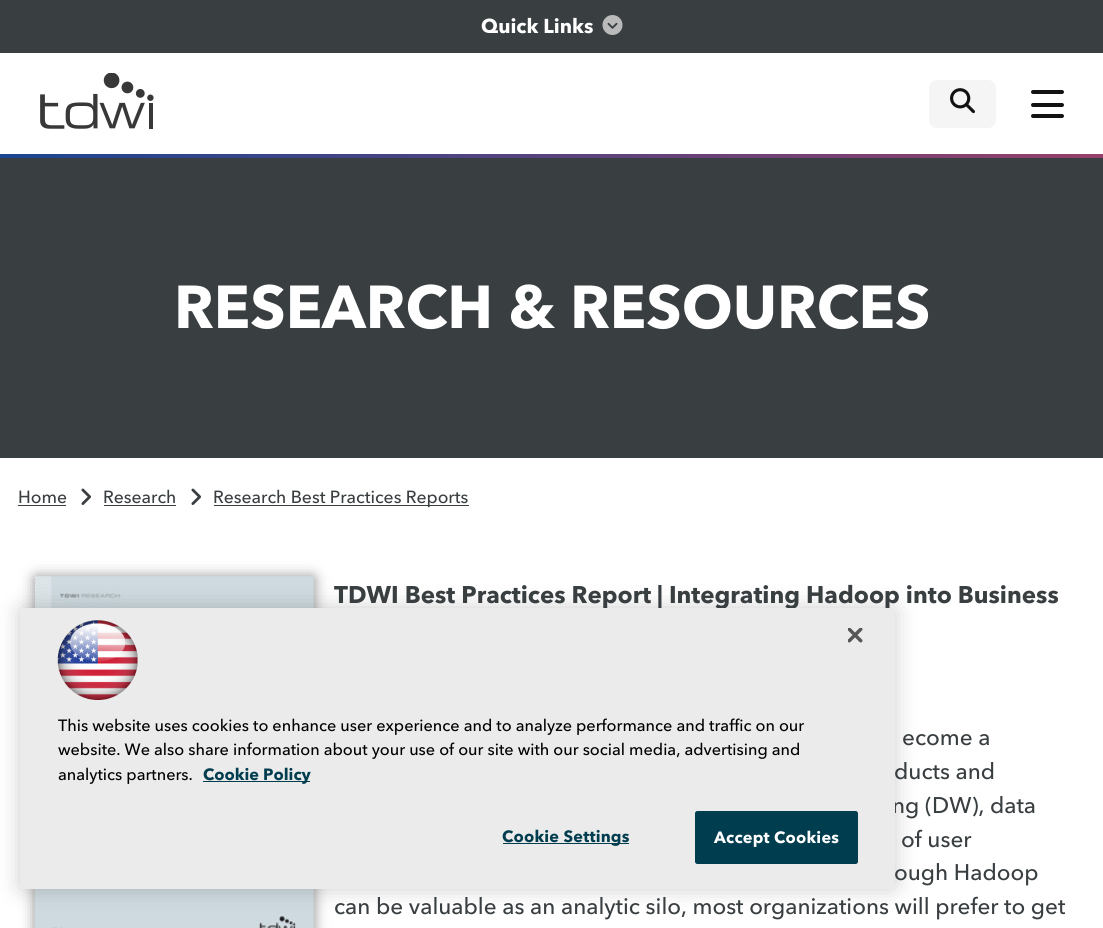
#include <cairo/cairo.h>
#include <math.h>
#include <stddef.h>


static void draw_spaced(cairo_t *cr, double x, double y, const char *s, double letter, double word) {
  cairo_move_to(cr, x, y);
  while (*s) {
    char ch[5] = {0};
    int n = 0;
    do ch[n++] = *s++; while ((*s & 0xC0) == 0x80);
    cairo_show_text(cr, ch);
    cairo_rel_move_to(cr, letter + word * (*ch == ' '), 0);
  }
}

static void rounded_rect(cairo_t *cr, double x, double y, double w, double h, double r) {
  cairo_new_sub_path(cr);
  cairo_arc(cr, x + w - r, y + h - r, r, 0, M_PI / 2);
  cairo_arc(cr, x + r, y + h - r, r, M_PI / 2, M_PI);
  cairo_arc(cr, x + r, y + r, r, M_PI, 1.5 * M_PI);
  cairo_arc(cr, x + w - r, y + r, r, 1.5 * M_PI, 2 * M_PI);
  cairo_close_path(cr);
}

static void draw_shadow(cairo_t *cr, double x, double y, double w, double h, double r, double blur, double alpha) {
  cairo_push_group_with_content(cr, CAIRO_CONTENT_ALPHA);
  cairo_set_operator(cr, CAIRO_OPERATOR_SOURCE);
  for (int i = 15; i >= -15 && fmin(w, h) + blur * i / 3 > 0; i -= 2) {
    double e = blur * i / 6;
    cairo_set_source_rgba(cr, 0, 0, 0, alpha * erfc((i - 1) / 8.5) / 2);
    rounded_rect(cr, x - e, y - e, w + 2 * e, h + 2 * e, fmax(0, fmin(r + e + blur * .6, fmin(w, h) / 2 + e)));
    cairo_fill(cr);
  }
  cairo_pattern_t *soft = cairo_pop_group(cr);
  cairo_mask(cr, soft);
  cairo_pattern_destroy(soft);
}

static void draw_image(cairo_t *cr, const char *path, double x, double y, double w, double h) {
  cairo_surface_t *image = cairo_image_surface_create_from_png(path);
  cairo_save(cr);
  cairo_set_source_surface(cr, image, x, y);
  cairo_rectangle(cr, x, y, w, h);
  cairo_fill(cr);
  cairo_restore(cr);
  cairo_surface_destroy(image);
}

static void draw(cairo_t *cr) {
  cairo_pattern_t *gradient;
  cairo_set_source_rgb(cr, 1, 1, 1);
  cairo_paint(cr);
  cairo_set_source_rgb(cr, 57 / 255.0, 62 / 255.0, 65 / 255.0);
  cairo_rectangle(cr, 0, 0, 1103, 53);
  cairo_fill(cr);
  draw_image(cr, "images/1.png", 602, 15, 21, 20);
  draw_image(cr, "images/2.png", 40, 73, 114, 56);
  cairo_set_source_rgb(cr, 245 / 255.0, 245 / 255.0, 245 / 255.0);
  rounded_rect(cr, 929, 80, 67, 48, 8);
  cairo_fill(cr);
  draw_image(cr, "images/3.png", 950, 88, 25, 26);
  cairo_set_source_rgb(cr, 18 / 255.0, 18 / 255.0, 18 / 255.0);
  rounded_rect(cr, 1031, 90, 33, 4, 2);
  cairo_fill(cr);
  rounded_rect(cr, 1031, 103, 33, 4, 2);
  cairo_fill(cr);
  rounded_rect(cr, 1031, 114, 33, 4, 2);
  cairo_fill(cr);
  gradient = cairo_pattern_create_linear(0, 156, 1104, 156);
  cairo_pattern_add_color_stop_rgba(gradient, 0, 27 / 255.0, 70 / 255.0, 146 / 255.0, 1);
  cairo_pattern_add_color_stop_rgba(gradient, 1, 150 / 255.0, 64 / 255.0, 105 / 255.0, 1);
  cairo_set_source(cr, gradient);
  cairo_pattern_destroy(gradient);
  cairo_rectangle(cr, 0, 154, 1103, 4);
  cairo_fill(cr);
  cairo_set_source_rgb(cr, 57 / 255.0, 62 / 255.0, 65 / 255.0);
  cairo_rectangle(cr, 0, 158, 1103, 300);
  cairo_fill(cr);
  cairo_rectangle(cr, 18, 505, 48, 1);
  cairo_fill(cr);
  draw_image(cr, "images/4.png", 81, 488, 10, 17);
  cairo_rectangle(cr, 104, 505, 72, 1);
  cairo_fill(cr);
  draw_image(cr, "images/4.png", 191, 488, 10, 17);
  cairo_rectangle(cr, 214, 505, 255, 1);
  cairo_fill(cr);
  cairo_set_source_rgb(cr, 0, 0, 0);
  draw_shadow(cr, 36, 578, 277, 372, 0, 7.5, 0.51);
  draw_image(cr, "images/5.png", 35, 576, 279, 352);
  draw_shadow(cr, 20, 608, 875, 281, 3, 11, 0.2);
  cairo_select_font_face(cr, "Avenir Next", CAIRO_FONT_SLANT_NORMAL, CAIRO_FONT_WEIGHT_BOLD);
  cairo_set_font_size(cr, 20);
  cairo_set_source_rgb(cr, 1, 1, 1);
  cairo_move_to(cr, 481, 33);
  cairo_show_text(cr, "Quick Links");
  cairo_set_font_size(cr, 60);
  cairo_move_to(cr, 174, 328);
  cairo_show_text(cr, "RESEARCH & RESOURCES");
  cairo_select_font_face(cr, "Avenir Next Medium", CAIRO_FONT_SLANT_NORMAL, CAIRO_FONT_WEIGHT_NORMAL);
  cairo_set_font_size(cr, 17.5);
  cairo_set_source_rgb(cr, 57 / 255.0, 62 / 255.0, 65 / 255.0);
  cairo_move_to(cr, 18, 503);
  cairo_show_text(cr, "Home");
  cairo_move_to(cr, 103, 503);
  cairo_show_text(cr, "Research");
  cairo_move_to(cr, 213, 503);
  cairo_show_text(cr, "Research Best Practices Reports");
  cairo_select_font_face(cr, "Avenir Next", CAIRO_FONT_SLANT_NORMAL, CAIRO_FONT_WEIGHT_BOLD);
  cairo_set_font_size(cr, 24);
  cairo_move_to(cr, 334, 603);
  cairo_show_text(cr, "TDWI Best Practices Report | Integrating Hadoop into Business");
  cairo_select_font_face(cr, "Avenir Next Medium", CAIRO_FONT_SLANT_NORMAL, CAIRO_FONT_WEIGHT_NORMAL);
  cairo_set_font_size(cr, 22.5);
  cairo_move_to(cr, 902, 745);
  cairo_show_text(cr, "ecome a");
  cairo_move_to(cr, 894, 779);
  cairo_show_text(cr, "ducts and");
  cairo_move_to(cr, 892, 813);
  cairo_show_text(cr, "ng (DW), data");
  cairo_move_to(cr, 901, 847);
  cairo_show_text(cr, "of user");
  cairo_move_to(cr, 894, 880);
  cairo_show_text(cr, "ough Hadoop");
  cairo_move_to(cr, 334, 914);
  cairo_show_text(cr, "can be valuable as an analytic silo, most organizations will prefer to get");
  cairo_set_source_rgb(cr, 235 / 255.0, 235 / 255.0, 235 / 255.0);
  rounded_rect(cr, 20, 608, 875, 281, 3);
  cairo_fill(cr);
  draw_image(cr, "images/6.png", 848, 628, 15, 15);
  draw_image(cr, "images/7.png", 57, 620, 81, 80);
  cairo_set_font_size(cr, 16.25);
  cairo_set_source_rgb(cr, 0, 0, 0);
  cairo_move_to(cr, 58, 731);
  cairo_show_text(cr, "This website uses cookies to enhance user experience and to analyze performance and traffic on our");
  cairo_move_to(cr, 58, 755);
  cairo_show_text(cr, "website. We also share information about your use of our site with our social media, advertising and");
  cairo_move_to(cr, 58, 780);
  cairo_show_text(cr, "analytics partners.");
  cairo_set_source_rgb(cr, 0, 61 / 255.0, 79 / 255.0);
  cairo_rectangle(cr, 203, 781, 107, 1);
  cairo_fill(cr);
  cairo_select_font_face(cr, "Avenir Next", CAIRO_FONT_SLANT_NORMAL, CAIRO_FONT_WEIGHT_BOLD);
  cairo_move_to(cr, 203, 780);
  cairo_show_text(cr, "Cookie Policy");
  cairo_rectangle(cr, 503, 843, 126, 1);
  cairo_fill(cr);
  draw_spaced(cr, 502, 842, "Cookie Settings", 0.2, 0);
  rounded_rect(cr, 695.5, 811.5, 162, 52, 2);
  cairo_fill_preserve(cr);
  cairo_set_line_width(cr, 1);
  cairo_stroke(cr);
  cairo_set_source_rgb(cr, 1, 1, 1);
  draw_spaced(cr, 714, 843, "Accept Cookies", 0.2, 0);
}

int main(void) {
  cairo_surface_t *surface = cairo_image_surface_create(CAIRO_FORMAT_RGB24, 1103, 928);
  cairo_t *cr = cairo_create(surface);
  cairo_font_options_t *options = cairo_font_options_create();
  cairo_font_options_set_hint_metrics(options, CAIRO_HINT_METRICS_OFF);
  cairo_font_options_set_hint_style(options, CAIRO_HINT_STYLE_NONE);
  cairo_set_font_options(cr, options);
  cairo_set_miter_limit(cr, 4);
  draw(cr);
  cairo_surface_write_to_png(surface, "out.png");
  cairo_font_options_destroy(options);
  cairo_destroy(cr);
  cairo_surface_destroy(surface);
  return 0;
}
